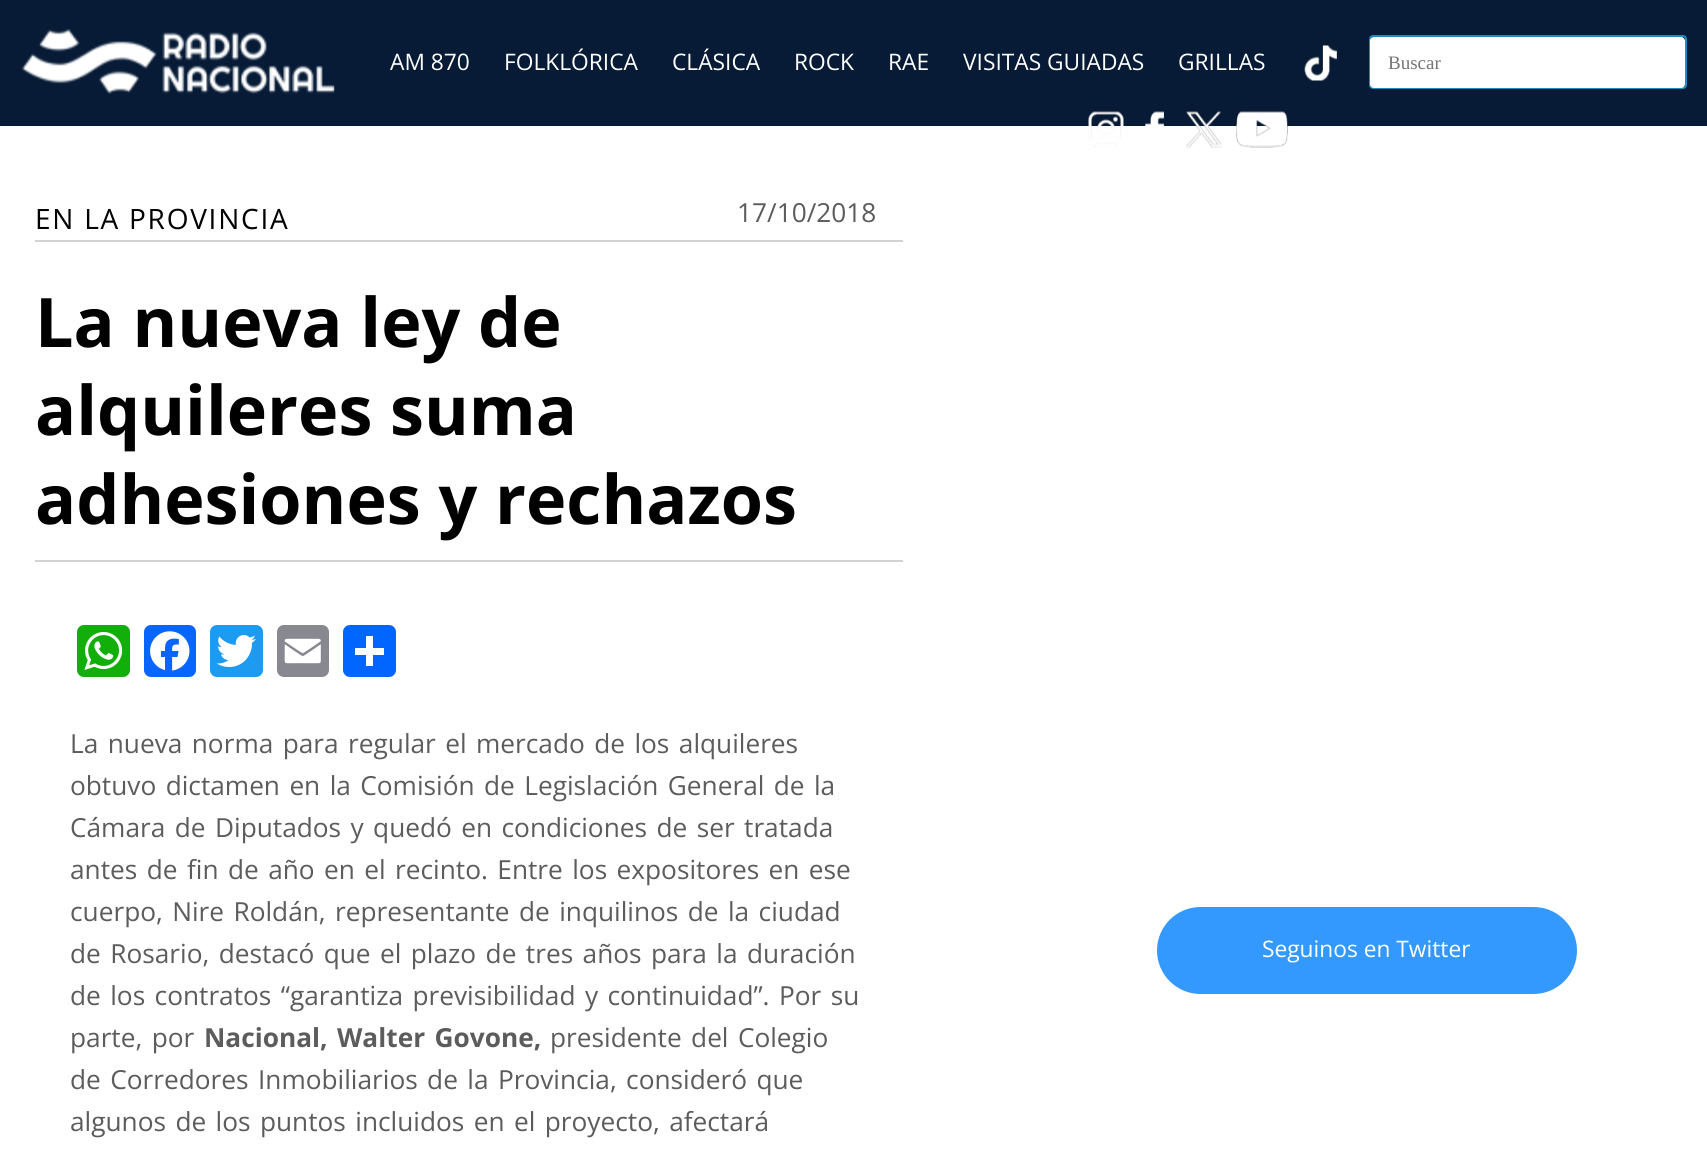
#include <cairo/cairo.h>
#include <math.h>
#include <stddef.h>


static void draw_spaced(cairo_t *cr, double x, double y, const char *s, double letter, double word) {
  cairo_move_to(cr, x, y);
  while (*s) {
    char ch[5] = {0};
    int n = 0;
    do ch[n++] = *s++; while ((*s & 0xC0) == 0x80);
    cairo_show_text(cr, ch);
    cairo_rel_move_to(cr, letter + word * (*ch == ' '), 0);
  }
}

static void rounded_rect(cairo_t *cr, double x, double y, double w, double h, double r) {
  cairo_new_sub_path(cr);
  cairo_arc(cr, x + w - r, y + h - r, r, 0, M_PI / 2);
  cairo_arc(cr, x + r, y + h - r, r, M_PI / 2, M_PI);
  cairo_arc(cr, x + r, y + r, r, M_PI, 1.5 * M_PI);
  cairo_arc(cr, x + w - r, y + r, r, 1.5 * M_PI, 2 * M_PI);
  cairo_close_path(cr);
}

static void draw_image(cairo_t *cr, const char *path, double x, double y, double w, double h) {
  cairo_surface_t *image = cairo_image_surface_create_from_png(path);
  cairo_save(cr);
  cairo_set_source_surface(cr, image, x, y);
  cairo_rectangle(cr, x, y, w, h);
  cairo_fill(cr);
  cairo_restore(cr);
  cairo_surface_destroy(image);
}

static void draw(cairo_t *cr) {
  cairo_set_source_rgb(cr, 1, 1, 1);
  cairo_paint(cr);
  cairo_set_source_rgb(cr, 7 / 255.0, 27 / 255.0, 54 / 255.0);
  cairo_rectangle(cr, 0, 0, 1707, 126);
  cairo_fill(cr);
  draw_image(cr, "images/1.png", 22, 29, 313, 65);
  draw_image(cr, "images/2.png", 1304, 45, 33, 36);
  rounded_rect(cr, 1370, 36, 316, 52, 3);
  cairo_set_source_rgb(cr, 30 / 255.0, 140 / 255.0, 190 / 255.0);
  cairo_stroke(cr);
  cairo_set_source_rgb(cr, 1, 1, 1);
  rounded_rect(cr, 1370, 37, 315, 51, 4);
  cairo_fill(cr);
  draw_image(cr, "images/3.png", 1088, 111, 36, 37);
  draw_image(cr, "images/4.png", 1145, 111, 19, 15);
  draw_image(cr, "images/5.png", 1186, 111, 36, 37);
  draw_image(cr, "images/6.png", 1236, 111, 52, 37);
  cairo_set_source_rgb(cr, 211 / 255.0, 211 / 255.0, 211 / 255.0);
  cairo_rectangle(cr, 35, 240, 868, 2);
  cairo_fill(cr);
  cairo_rectangle(cr, 35, 560, 868, 2);
  cairo_fill(cr);
  cairo_set_source_rgb(cr, 18 / 255.0, 175 / 255.0, 10 / 255.0);
  rounded_rect(cr, 77, 625, 53, 52, 7);
  cairo_fill(cr);
  draw_image(cr, "images/7.png", 84, 632, 39, 38);
  cairo_set_source_rgb(cr, 8 / 255.0, 102 / 255.0, 1);
  rounded_rect(cr, 144, 625, 52, 52, 7);
  cairo_fill(cr);
  draw_image(cr, "images/8.png", 150, 631, 40, 40);
  cairo_set_source_rgb(cr, 29 / 255.0, 155 / 255.0, 240 / 255.0);
  rounded_rect(cr, 210, 625, 53, 52, 7);
  cairo_fill(cr);
  draw_image(cr, "images/9.png", 216, 635, 40, 32);
  cairo_set_source_rgb(cr, 136 / 255.0, 137 / 255.0, 144 / 255.0);
  rounded_rect(cr, 277, 625, 52, 52, 7);
  cairo_fill(cr);
  draw_image(cr, "images/10.png", 284, 638, 37, 26);
  cairo_set_source_rgb(cr, 1 / 255.0, 102 / 255.0, 1);
  rounded_rect(cr, 343, 625, 53, 52, 7);
  cairo_fill(cr);
  cairo_set_source_rgb(cr, 1, 1, 1);
  cairo_rectangle(cr, 366, 636, 7, 30);
  cairo_fill(cr);
  cairo_rectangle(cr, 355, 648, 29, 7);
  cairo_fill(cr);
  cairo_set_source_rgb(cr, 51 / 255.0, 153 / 255.0, 1);
  rounded_rect(cr, 1157, 907, 420, 87, 43.5);
  cairo_fill(cr);
  cairo_select_font_face(cr, "Open Sans", CAIRO_FONT_SLANT_NORMAL, CAIRO_FONT_WEIGHT_NORMAL);
  cairo_set_font_size(cr, 22.75);
  cairo_set_source_rgb(cr, 1, 1, 1);
  cairo_move_to(cr, 390, 70);
  cairo_show_text(cr, "AM 870");
  cairo_move_to(cr, 504, 70);
  cairo_show_text(cr, "FOLKLÓRICA");
  cairo_move_to(cr, 672, 70);
  cairo_show_text(cr, "CLÁSICA");
  cairo_move_to(cr, 794, 70);
  cairo_show_text(cr, "ROCK");
  cairo_move_to(cr, 888, 70);
  cairo_show_text(cr, "RAE");
  cairo_move_to(cr, 963, 70);
  cairo_show_text(cr, "VISITAS GUIADAS");
  cairo_move_to(cr, 1178, 70);
  cairo_show_text(cr, "GRILLAS");
  cairo_select_font_face(cr, "Liberation Serif", CAIRO_FONT_SLANT_NORMAL, CAIRO_FONT_WEIGHT_NORMAL);
  cairo_set_font_size(cr, 19);
  cairo_set_source_rgb(cr, 117 / 255.0, 117 / 255.0, 117 / 255.0);
  cairo_move_to(cr, 1388, 69);
  cairo_show_text(cr, "Buscar");
  cairo_select_font_face(cr, "Open Sans", CAIRO_FONT_SLANT_NORMAL, CAIRO_FONT_WEIGHT_NORMAL);
  cairo_set_font_size(cr, 28);
  cairo_set_source_rgb(cr, 0, 0, 0);
  draw_spaced(cr, 35, 229, "EN LA PROVINCIA", 1.75, 0);
  cairo_set_font_size(cr, 26.25);
  cairo_set_source_rgb(cr, 92 / 255.0, 92 / 255.0, 92 / 255.0);
  cairo_move_to(cr, 737, 222);
  cairo_show_text(cr, "17/10/2018");
  cairo_select_font_face(cr, "Open Sans", CAIRO_FONT_SLANT_NORMAL, CAIRO_FONT_WEIGHT_BOLD);
  cairo_set_font_size(cr, 68.25);
  cairo_set_source_rgb(cr, 0, 0, 0);
  cairo_move_to(cr, 35, 347);
  cairo_show_text(cr, "La nueva ley de");
  cairo_move_to(cr, 35, 435);
  cairo_show_text(cr, "alquileres suma");
  cairo_move_to(cr, 35, 524);
  cairo_show_text(cr, "adhesiones y rechazos");
  cairo_select_font_face(cr, "Open Sans", CAIRO_FONT_SLANT_NORMAL, CAIRO_FONT_WEIGHT_NORMAL);
  cairo_set_font_size(cr, 26.25);
  cairo_set_source_rgb(cr, 92 / 255.0, 92 / 255.0, 92 / 255.0);
  draw_spaced(cr, 70, 753, "La nueva norma para regular el mercado de los alquileres", 0, 2.6);
  draw_spaced(cr, 70, 795, "obtuvo dictamen en la Comisión de Legislación General de la", 0, 2.6);
  draw_spaced(cr, 70, 837, "Cámara de Diputados y quedó en condiciones de ser tratada", 0, 2.6);
  draw_spaced(cr, 70, 879, "antes de fin de año en el recinto. Entre los expositores en ese", 0, 2.6);
  draw_spaced(cr, 70, 921, "cuerpo, Nire Roldán, representante de inquilinos de la ciudad", 0, 2.6);
  draw_spaced(cr, 70, 963, "de Rosario, destacó que el plazo de tres años para la duración", 0, 2.6);
  draw_spaced(cr, 70, 1005, "de los contratos “garantiza previsibilidad y continuidad”. Por su", 0, 2.6);
  draw_spaced(cr, 70, 1047, "parte, por", 0, 2.6);
  cairo_select_font_face(cr, "Open Sans", CAIRO_FONT_SLANT_NORMAL, CAIRO_FONT_WEIGHT_BOLD);
  draw_spaced(cr, 204, 1047, "Nacional, Walter Govone,", 0, 2.6);
  cairo_select_font_face(cr, "Open Sans", CAIRO_FONT_SLANT_NORMAL, CAIRO_FONT_WEIGHT_NORMAL);
  draw_spaced(cr, 550, 1047, "presidente del Colegio", 0, 2.6);
  draw_spaced(cr, 70, 1089, "de Corredores Inmobiliarios de la Provincia, consideró que", 0, 2.6);
  draw_spaced(cr, 70, 1131, "algunos de los puntos incluidos en el proyecto, afectará", 0, 2.6);
  cairo_set_font_size(cr, 22.75);
  cairo_set_source_rgb(cr, 1, 1, 1);
  cairo_move_to(cr, 1262, 957);
  cairo_show_text(cr, "Seguinos en Twitter");
}

int main(void) {
  cairo_surface_t *surface = cairo_image_surface_create(CAIRO_FORMAT_RGB24, 1707, 1164);
  cairo_t *cr = cairo_create(surface);
  cairo_font_options_t *options = cairo_font_options_create();
  cairo_font_options_set_hint_metrics(options, CAIRO_HINT_METRICS_OFF);
  cairo_font_options_set_hint_style(options, CAIRO_HINT_STYLE_NONE);
  cairo_set_font_options(cr, options);
  cairo_set_miter_limit(cr, 4);
  draw(cr);
  cairo_surface_write_to_png(surface, "out.png");
  cairo_font_options_destroy(options);
  cairo_destroy(cr);
  cairo_surface_destroy(surface);
  return 0;
}
